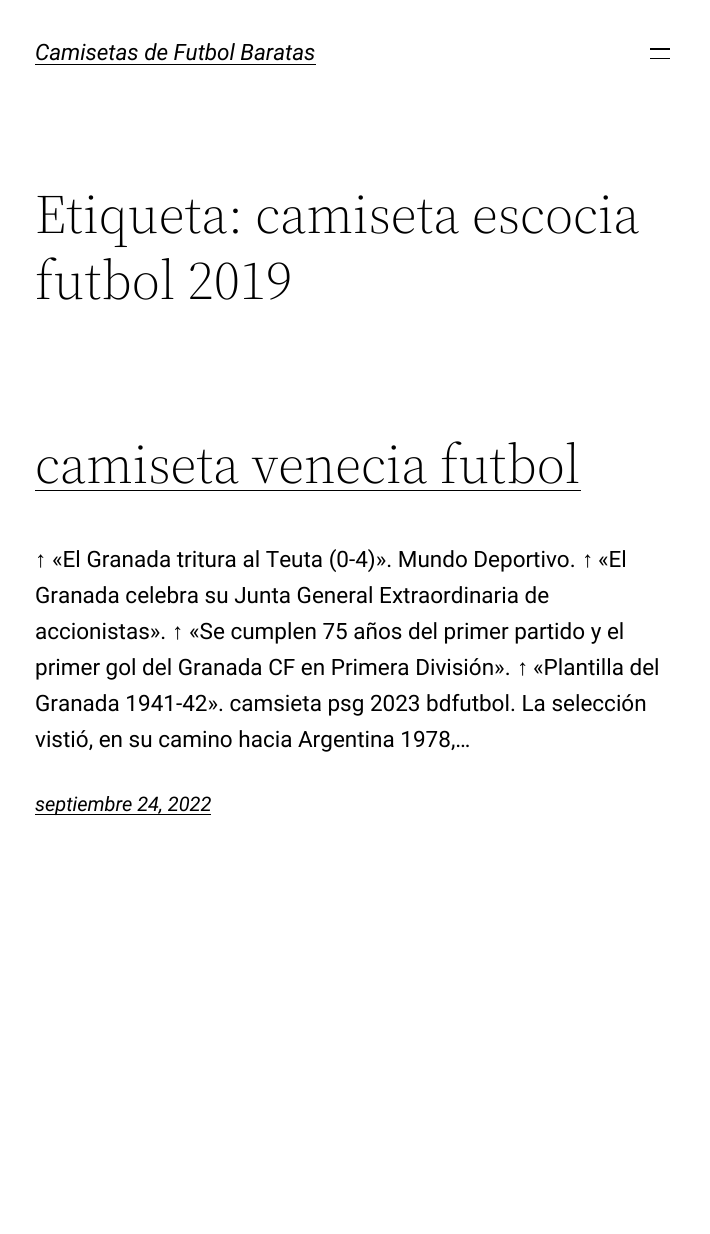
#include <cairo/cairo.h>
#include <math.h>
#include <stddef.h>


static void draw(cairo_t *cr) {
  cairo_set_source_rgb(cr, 1, 1, 1);
  cairo_paint(cr);
  cairo_set_source_rgb(cr, 0, 0, 0);
  cairo_rectangle(cr, 35, 64, 281, 1);
  cairo_fill(cr);
  cairo_rectangle(cr, 650, 48, 20, 2);
  cairo_fill(cr);
  cairo_rectangle(cr, 650, 58, 20, 1);
  cairo_fill(cr);
  cairo_rectangle(cr, 35, 490, 546, 1);
  cairo_fill(cr);
  cairo_rectangle(cr, 35, 814, 176, 1);
  cairo_fill(cr);
  cairo_select_font_face(cr, "Roboto", CAIRO_FONT_SLANT_ITALIC, CAIRO_FONT_WEIGHT_NORMAL);
  cairo_set_font_size(cr, 22.5);
  cairo_move_to(cr, 35, 60);
  cairo_show_text(cr, "Camisetas de Futbol Baratas");
  cairo_select_font_face(cr, "Source Serif 4 Light", CAIRO_FONT_SLANT_NORMAL, CAIRO_FONT_WEIGHT_NORMAL);
  cairo_set_font_size(cr, 55);
  cairo_move_to(cr, 35, 233);
  cairo_show_text(cr, "Etiqueta: camiseta escocia");
  cairo_move_to(cr, 35, 299);
  cairo_show_text(cr, "futbol 2019");
  cairo_move_to(cr, 35, 483);
  cairo_show_text(cr, "camiseta venecia futbol");
  cairo_select_font_face(cr, "Liberation Sans", CAIRO_FONT_SLANT_NORMAL, CAIRO_FONT_WEIGHT_NORMAL);
  cairo_set_font_size(cr, 22.5);
  cairo_move_to(cr, 35, 567);
  cairo_show_text(cr, "↑");
  cairo_select_font_face(cr, "Roboto", CAIRO_FONT_SLANT_NORMAL, CAIRO_FONT_WEIGHT_NORMAL);
  cairo_move_to(cr, 52, 567);
  cairo_show_text(cr, "«El Granada tritura al Teuta (0-4)». Mundo Deportivo.");
  cairo_select_font_face(cr, "Liberation Sans", CAIRO_FONT_SLANT_NORMAL, CAIRO_FONT_WEIGHT_NORMAL);
  cairo_move_to(cr, 582, 567);
  cairo_show_text(cr, "↑");
  cairo_select_font_face(cr, "Roboto", CAIRO_FONT_SLANT_NORMAL, CAIRO_FONT_WEIGHT_NORMAL);
  cairo_move_to(cr, 598, 567);
  cairo_show_text(cr, "«El");
  cairo_move_to(cr, 35, 603);
  cairo_show_text(cr, "Granada celebra su Junta General Extraordinaria de");
  cairo_move_to(cr, 35, 639);
  cairo_show_text(cr, "accionistas».");
  cairo_select_font_face(cr, "Liberation Sans", CAIRO_FONT_SLANT_NORMAL, CAIRO_FONT_WEIGHT_NORMAL);
  cairo_move_to(cr, 172, 639);
  cairo_show_text(cr, "↑");
  cairo_select_font_face(cr, "Roboto", CAIRO_FONT_SLANT_NORMAL, CAIRO_FONT_WEIGHT_NORMAL);
  cairo_move_to(cr, 189, 639);
  cairo_show_text(cr, "«Se cumplen 75 años del primer partido y el");
  cairo_move_to(cr, 35, 675);
  cairo_show_text(cr, "primer gol del Granada CF en Primera División».");
  cairo_select_font_face(cr, "Liberation Sans", CAIRO_FONT_SLANT_NORMAL, CAIRO_FONT_WEIGHT_NORMAL);
  cairo_move_to(cr, 517, 675);
  cairo_show_text(cr, "↑");
  cairo_select_font_face(cr, "Roboto", CAIRO_FONT_SLANT_NORMAL, CAIRO_FONT_WEIGHT_NORMAL);
  cairo_move_to(cr, 533, 675);
  cairo_show_text(cr, "«Plantilla del");
  cairo_move_to(cr, 35, 711);
  cairo_show_text(cr, "Granada 1941-42». camsieta psg 2023 bdfutbol. La selección");
  cairo_move_to(cr, 35, 747);
  cairo_show_text(cr, "vistió, en su camino hacia Argentina 1978,…");
  cairo_select_font_face(cr, "Roboto", CAIRO_FONT_SLANT_ITALIC, CAIRO_FONT_WEIGHT_NORMAL);
  cairo_set_font_size(cr, 20);
  cairo_move_to(cr, 35, 811);
  cairo_show_text(cr, "septiembre 24, 2022");
}

int main(void) {
  cairo_surface_t *surface = cairo_image_surface_create(CAIRO_FORMAT_RGB24, 710, 1234);
  cairo_t *cr = cairo_create(surface);
  cairo_font_options_t *options = cairo_font_options_create();
  cairo_font_options_set_hint_metrics(options, CAIRO_HINT_METRICS_OFF);
  cairo_font_options_set_hint_style(options, CAIRO_HINT_STYLE_NONE);
  cairo_set_font_options(cr, options);
  cairo_set_miter_limit(cr, 4);
  draw(cr);
  cairo_surface_write_to_png(surface, "out.png");
  cairo_font_options_destroy(options);
  cairo_destroy(cr);
  cairo_surface_destroy(surface);
  return 0;
}
